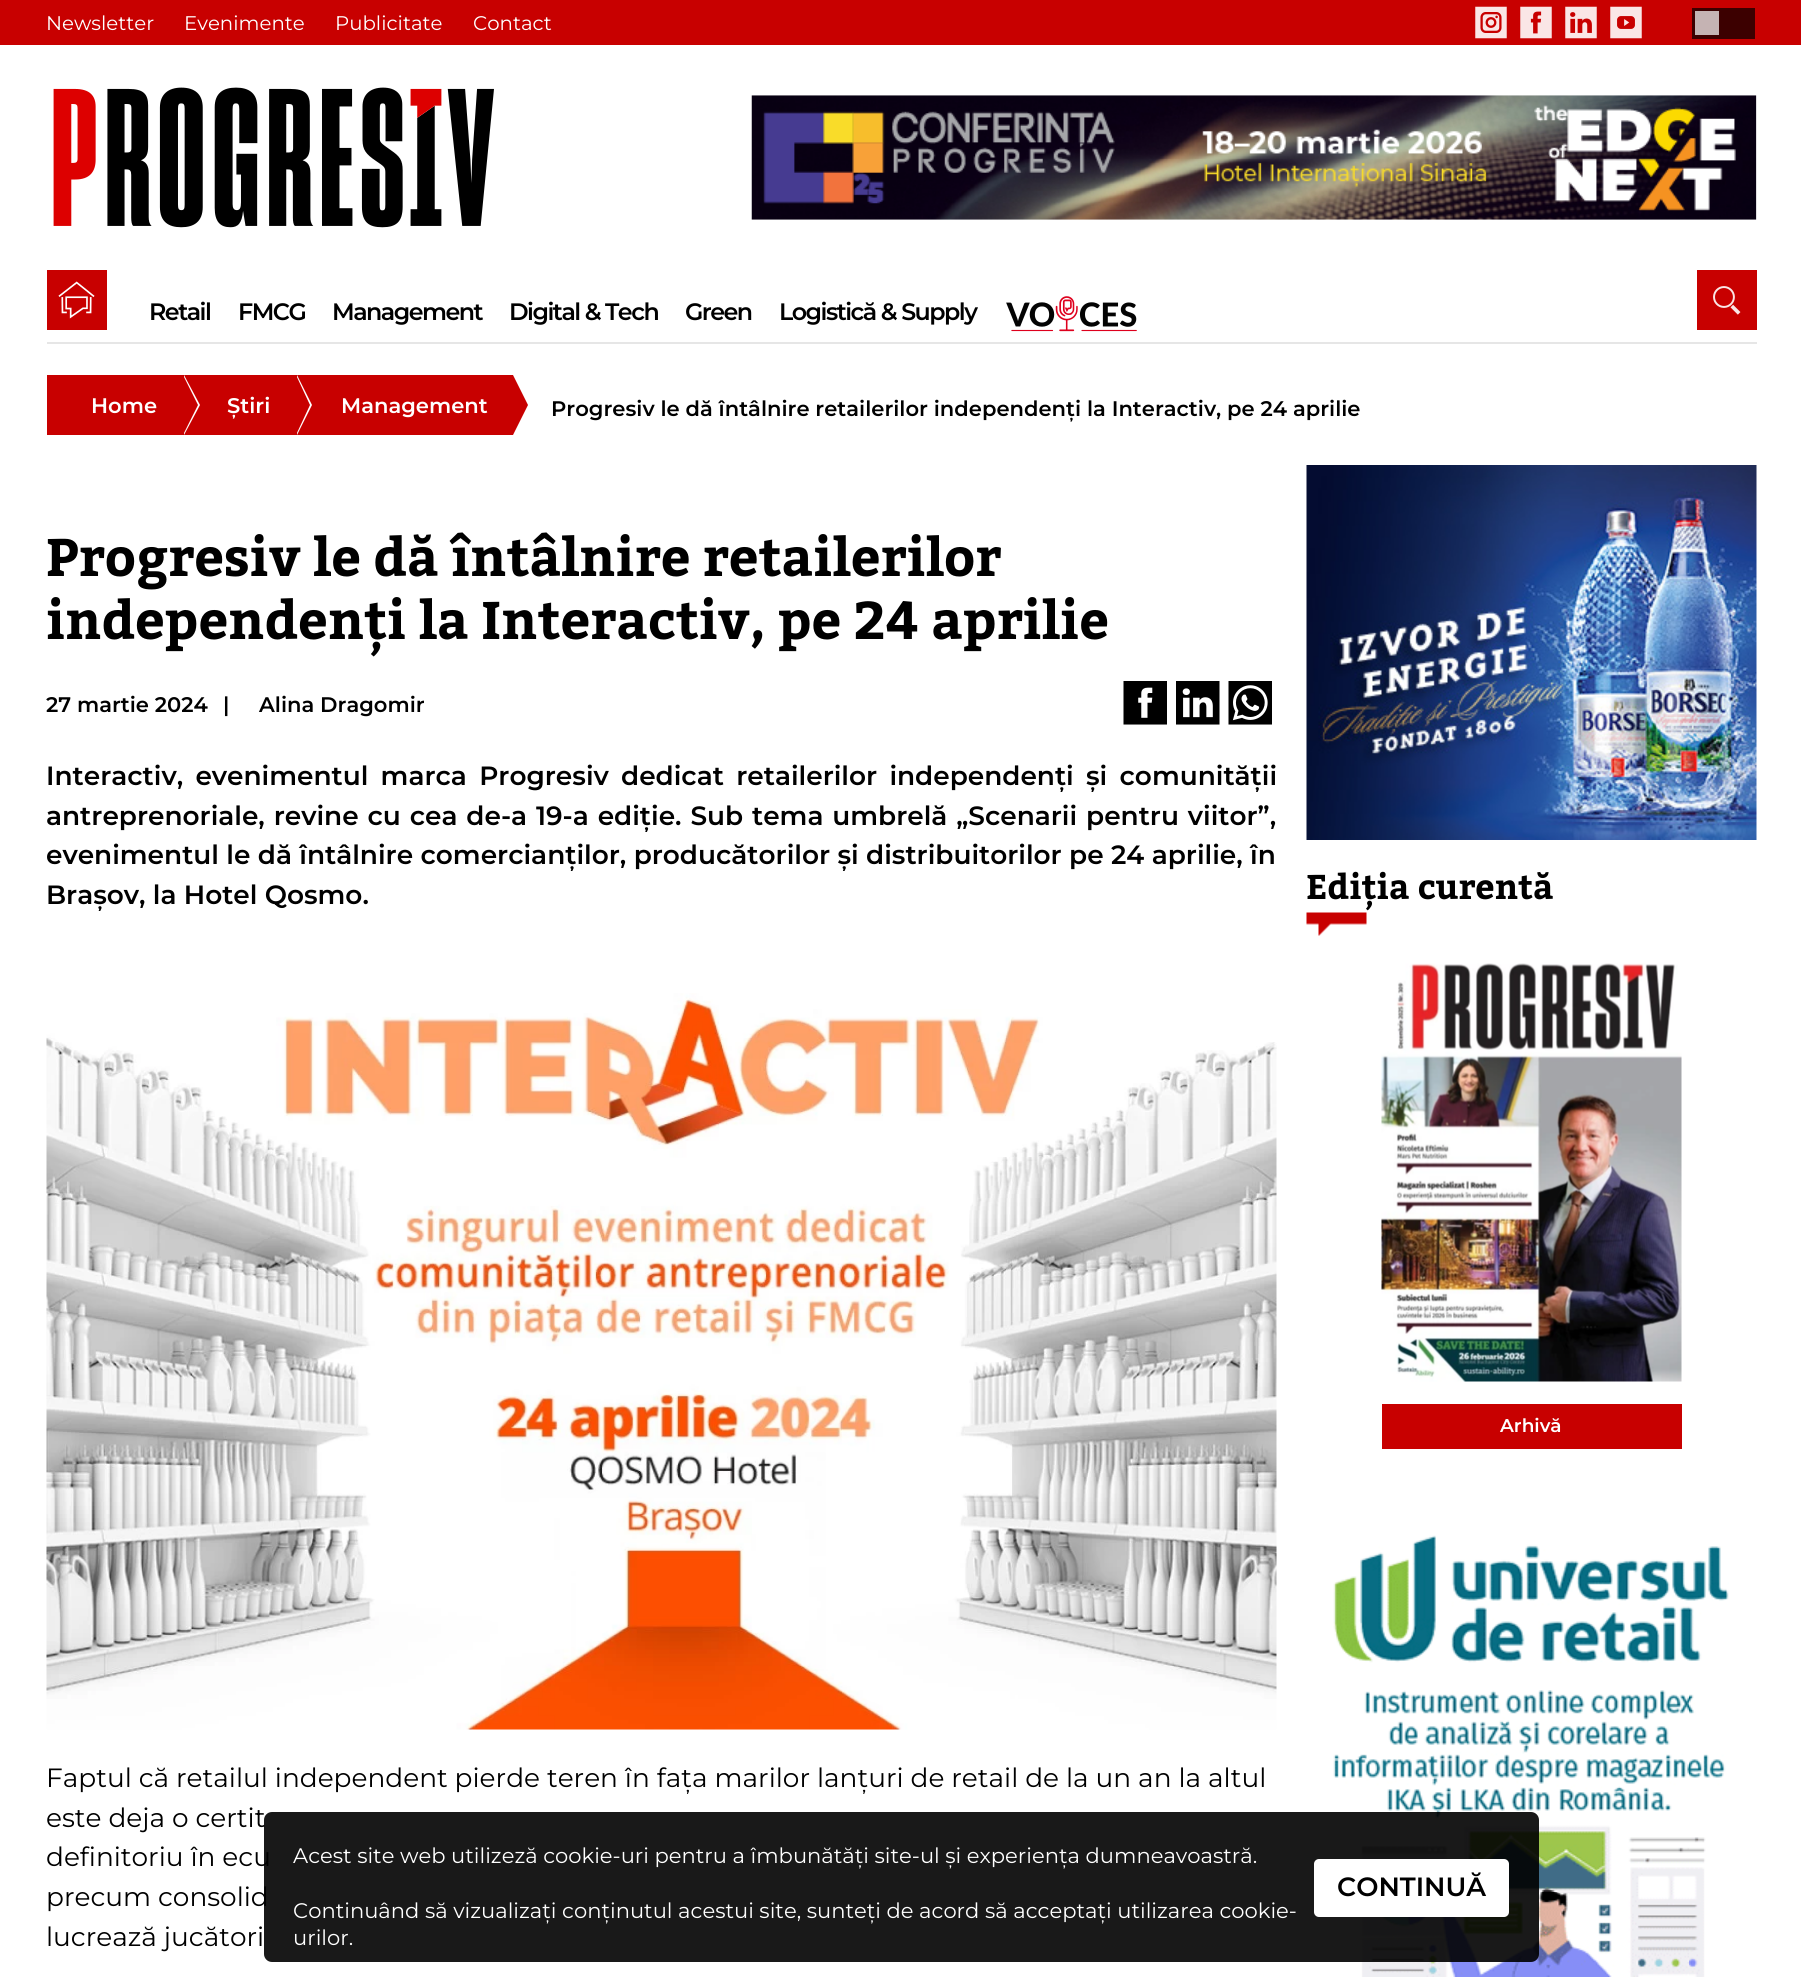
#include <cairo/cairo.h>
#include <math.h>
#include <stddef.h>


static void draw_spaced(cairo_t *cr, double x, double y, const char *s, double letter, double word) {
  cairo_move_to(cr, x, y);
  while (*s) {
    char ch[5] = {0};
    int n = 0;
    do ch[n++] = *s++; while ((*s & 0xC0) == 0x80);
    cairo_show_text(cr, ch);
    cairo_rel_move_to(cr, letter + word * (*ch == ' '), 0);
  }
}

static void rounded_rect(cairo_t *cr, double x, double y, double w, double h, double r) {
  cairo_new_sub_path(cr);
  cairo_arc(cr, x + w - r, y + h - r, r, 0, M_PI / 2);
  cairo_arc(cr, x + r, y + h - r, r, M_PI / 2, M_PI);
  cairo_arc(cr, x + r, y + r, r, M_PI, 1.5 * M_PI);
  cairo_arc(cr, x + w - r, y + r, r, 1.5 * M_PI, 2 * M_PI);
  cairo_close_path(cr);
}

static void draw_image(cairo_t *cr, const char *path, double x, double y, double w, double h) {
  cairo_surface_t *image = cairo_image_surface_create_from_png(path);
  cairo_save(cr);
  cairo_set_source_surface(cr, image, x, y);
  cairo_rectangle(cr, x, y, w, h);
  cairo_fill(cr);
  cairo_restore(cr);
  cairo_surface_destroy(image);
}

static void draw(cairo_t *cr) {
  cairo_set_source_rgb(cr, 1, 1, 1);
  cairo_paint(cr);
  cairo_set_source_rgb(cr, 200 / 255.0, 0, 0);
  cairo_rectangle(cr, 0, 0, 1801, 45);
  cairo_fill(cr);
  draw_image(cr, "images/1.png", 1475, 6, 32, 33);
  draw_image(cr, "images/2.png", 1520, 6, 32, 33);
  draw_image(cr, "images/3.png", 1565, 6, 32, 33);
  draw_image(cr, "images/4.png", 1610, 6, 32, 33);
  cairo_set_source_rgb(cr, 60 / 255.0, 0, 0);
  cairo_rectangle(cr, 1692, 8, 63, 31);
  cairo_fill(cr);
  cairo_set_source_rgb(cr, 197 / 255.0, 179 / 255.0, 179 / 255.0);
  cairo_rectangle(cr, 1695, 11, 24, 24);
  cairo_fill(cr);
  draw_image(cr, "images/5.png", 53, 87, 441, 141);
  draw_image(cr, "images/6.png", 751, 95, 1006, 125);
  cairo_set_source_rgb(cr, 200 / 255.0, 0, 0);
  cairo_rectangle(cr, 47, 270, 60, 60);
  cairo_fill(cr);
  draw_image(cr, "images/7.png", 58, 281, 37, 38);
  draw_image(cr, "images/8.png", 1006, 296, 131, 36);
  cairo_rectangle(cr, 1697, 270, 60, 60);
  cairo_fill(cr);
  draw_image(cr, "images/9.png", 1713, 286, 28, 29);
  cairo_set_source_rgb(cr, 230 / 255.0, 230 / 255.0, 230 / 255.0);
  cairo_rectangle(cr, 47, 342, 1710, 2);
  cairo_fill(cr);
  cairo_set_source_rgb(cr, 200 / 255.0, 0, 0);
  cairo_rectangle(cr, 47, 375, 466, 60);
  cairo_fill(cr);
  cairo_set_source_rgb(cr, 1, 1, 1);
  cairo_new_path(cr);
  cairo_move_to(cr, 184, 435);
  cairo_line_to(cr, 184, 375);
  cairo_line_to(cr, 200, 405);
  cairo_close_path(cr);
  cairo_fill(cr);
  cairo_set_source_rgb(cr, 200 / 255.0, 0, 0);
  cairo_new_path(cr);
  cairo_move_to(cr, 183, 435);
  cairo_line_to(cr, 183, 375);
  cairo_line_to(cr, 198, 405);
  cairo_close_path(cr);
  cairo_fill(cr);
  cairo_set_source_rgb(cr, 1, 1, 1);
  cairo_new_path(cr);
  cairo_move_to(cr, 297, 435);
  cairo_line_to(cr, 297, 375);
  cairo_line_to(cr, 312, 405);
  cairo_close_path(cr);
  cairo_fill(cr);
  cairo_set_source_rgb(cr, 200 / 255.0, 0, 0);
  cairo_new_path(cr);
  cairo_move_to(cr, 296, 435);
  cairo_line_to(cr, 296, 375);
  cairo_line_to(cr, 310, 405);
  cairo_close_path(cr);
  cairo_fill(cr);
  cairo_new_path(cr);
  cairo_move_to(cr, 513, 435);
  cairo_line_to(cr, 513, 375);
  cairo_line_to(cr, 528, 405);
  cairo_close_path(cr);
  cairo_fill(cr);
  draw_image(cr, "images/10.png", 1123, 681, 44, 44);
  draw_image(cr, "images/11.png", 1176, 681, 44, 44);
  draw_image(cr, "images/12.png", 1228, 681, 44, 44);
  draw_image(cr, "images/13.png", 46, 993, 1231, 737);
  draw_image(cr, "images/14.png", 1306, 465, 451, 375);
  draw_image(cr, "images/15.png", 1306, 912, 61, 24);
  draw_image(cr, "images/16.png", 1381, 963, 301, 419);
  cairo_rectangle(cr, 1382, 1404, 300, 45);
  cairo_fill(cr);
  draw_image(cr, "images/17.png", 1333, 1535, 396, 442);
  cairo_select_font_face(cr, "Montserrat", CAIRO_FONT_SLANT_NORMAL, CAIRO_FONT_WEIGHT_NORMAL);
  cairo_set_font_size(cr, 19.75);
  cairo_set_source_rgb(cr, 1, 1, 1);
  cairo_move_to(cr, 46, 30);
  cairo_show_text(cr, "Newsletter");
  cairo_move_to(cr, 184, 30);
  cairo_show_text(cr, "Evenimente");
  cairo_move_to(cr, 335, 30);
  cairo_show_text(cr, "Publicitate");
  cairo_move_to(cr, 473, 30);
  cairo_show_text(cr, "Contact");
  cairo_select_font_face(cr, "Montserrat SemiBold", CAIRO_FONT_SLANT_NORMAL, CAIRO_FONT_WEIGHT_NORMAL);
  cairo_set_font_size(cr, 23.75);
  cairo_set_source_rgb(cr, 0, 0, 0);
  draw_spaced(cr, 149, 320, "Retail", -1.5, 0);
  draw_spaced(cr, 238, 320, "FMCG", -1.5, 0);
  draw_spaced(cr, 332, 320, "Management", -1.5, 0);
  draw_spaced(cr, 509, 320, "Digital & Tech", -1.5, 0);
  draw_spaced(cr, 685, 320, "Green", -1.5, 0);
  draw_spaced(cr, 779, 320, "Logistică & Supply", -1.5, 0);
  cairo_set_font_size(cr, 21.1);
  cairo_set_source_rgb(cr, 1, 1, 1);
  cairo_move_to(cr, 91, 413);
  cairo_show_text(cr, "Home");
  cairo_move_to(cr, 227, 413);
  cairo_show_text(cr, "Știri");
  cairo_move_to(cr, 341, 413);
  cairo_show_text(cr, "Management");
  cairo_set_source_rgb(cr, 0, 0, 0);
  cairo_move_to(cr, 551, 416);
  cairo_show_text(cr, "Progresiv le dă întâlnire retailerilor independenți la Interactiv, pe 24 aprilie");
  cairo_select_font_face(cr, "Bitter", CAIRO_FONT_SLANT_NORMAL, CAIRO_FONT_WEIGHT_BOLD);
  cairo_set_font_size(cr, 52.8);
  cairo_move_to(cr, 46, 576);
  cairo_show_text(cr, "Progresiv le dă întâlnire retailerilor");
  cairo_move_to(cr, 46, 639);
  cairo_show_text(cr, "independenți la Interactiv, pe 24 aprilie");
  cairo_select_font_face(cr, "Montserrat SemiBold", CAIRO_FONT_SLANT_NORMAL, CAIRO_FONT_WEIGHT_NORMAL);
  cairo_set_font_size(cr, 21.1);
  cairo_move_to(cr, 46, 712);
  cairo_show_text(cr, "27 martie 2024");
  cairo_move_to(cr, 223, 712);
  cairo_show_text(cr, "|");
  cairo_move_to(cr, 259, 712);
  cairo_show_text(cr, "Alina Dragomir");
  cairo_set_font_size(cr, 26.4);
  draw_spaced(cr, 46, 785, "Interactiv, evenimentul marca Progresiv dedicat retailerilor independenți și comunității", 0, 5);
  draw_spaced(cr, 46, 825, "antreprenoriale, revine cu cea de-a 19-a ediție. Sub tema umbrelă „Scenarii pentru viitor”,", 0, 1.6);
  draw_spaced(cr, 46, 864, "evenimentul le dă întâlnire comercianților, producătorilor și distribuitorilor pe 24 aprilie, în", 0, 0.1);
  cairo_move_to(cr, 46, 904);
  cairo_show_text(cr, "Brașov, la Hotel Qosmo.");
  cairo_select_font_face(cr, "Montserrat", CAIRO_FONT_SLANT_NORMAL, CAIRO_FONT_WEIGHT_NORMAL);
  cairo_move_to(cr, 46, 1787);
  cairo_show_text(cr, "Faptul că retailul independent pierde teren în fața marilor lanțuri de retail de la un an la altul");
  cairo_move_to(cr, 46, 1827);
  cairo_show_text(cr, "este deja o certit");
  cairo_move_to(cr, 46, 1866);
  cairo_show_text(cr, "definitoriu în ecu");
  cairo_move_to(cr, 46, 1906);
  cairo_show_text(cr, "precum consolid");
  cairo_move_to(cr, 46, 1946);
  cairo_show_text(cr, "lucrează jucători");
  cairo_select_font_face(cr, "Bitter", CAIRO_FONT_SLANT_NORMAL, CAIRO_FONT_WEIGHT_BOLD);
  cairo_set_font_size(cr, 34.25);
  cairo_move_to(cr, 1306, 899);
  cairo_show_text(cr, "Ediția curentă");
  cairo_select_font_face(cr, "Montserrat SemiBold", CAIRO_FONT_SLANT_NORMAL, CAIRO_FONT_WEIGHT_NORMAL);
  cairo_set_font_size(cr, 18.5);
  cairo_set_source_rgb(cr, 1, 1, 1);
  cairo_move_to(cr, 1500, 1432);
  cairo_show_text(cr, "Arhivă");
  cairo_set_source_rgba(cr, 0, 0, 0, 0.9);
  rounded_rect(cr, 264, 1812, 1275, 150, 8);
  cairo_fill(cr);
  cairo_select_font_face(cr, "Montserrat", CAIRO_FONT_SLANT_NORMAL, CAIRO_FONT_WEIGHT_NORMAL);
  cairo_set_font_size(cr, 21.1);
  cairo_set_source_rgb(cr, 1, 1, 1);
  cairo_move_to(cr, 293, 1863);
  cairo_show_text(cr, "Acest site web utilizeză cookie-uri pentru a îmbunătăți site-ul și experiența dumneavoastră.");
  cairo_move_to(cr, 293, 1918);
  cairo_show_text(cr, "Continuând să vizualizați conținutul acestui site, sunteți de acord să acceptați utilizarea cookie-");
  cairo_move_to(cr, 293, 1945);
  cairo_show_text(cr, "urilor.");
  rounded_rect(cr, 1314, 1859, 195, 58, 5);
  cairo_fill(cr);
  cairo_select_font_face(cr, "Montserrat SemiBold", CAIRO_FONT_SLANT_NORMAL, CAIRO_FONT_WEIGHT_NORMAL);
  cairo_set_font_size(cr, 26.4);
  cairo_set_source_rgb(cr, 0, 0, 0);
  cairo_move_to(cr, 1337, 1896);
  cairo_show_text(cr, "CONTINUĂ");
}

int main(void) {
  cairo_surface_t *surface = cairo_image_surface_create(CAIRO_FORMAT_RGB24, 1801, 1977);
  cairo_t *cr = cairo_create(surface);
  cairo_font_options_t *options = cairo_font_options_create();
  cairo_font_options_set_hint_metrics(options, CAIRO_HINT_METRICS_OFF);
  cairo_font_options_set_hint_style(options, CAIRO_HINT_STYLE_NONE);
  cairo_set_font_options(cr, options);
  cairo_set_miter_limit(cr, 4);
  draw(cr);
  cairo_surface_write_to_png(surface, "out.png");
  cairo_font_options_destroy(options);
  cairo_destroy(cr);
  cairo_surface_destroy(surface);
  return 0;
}
